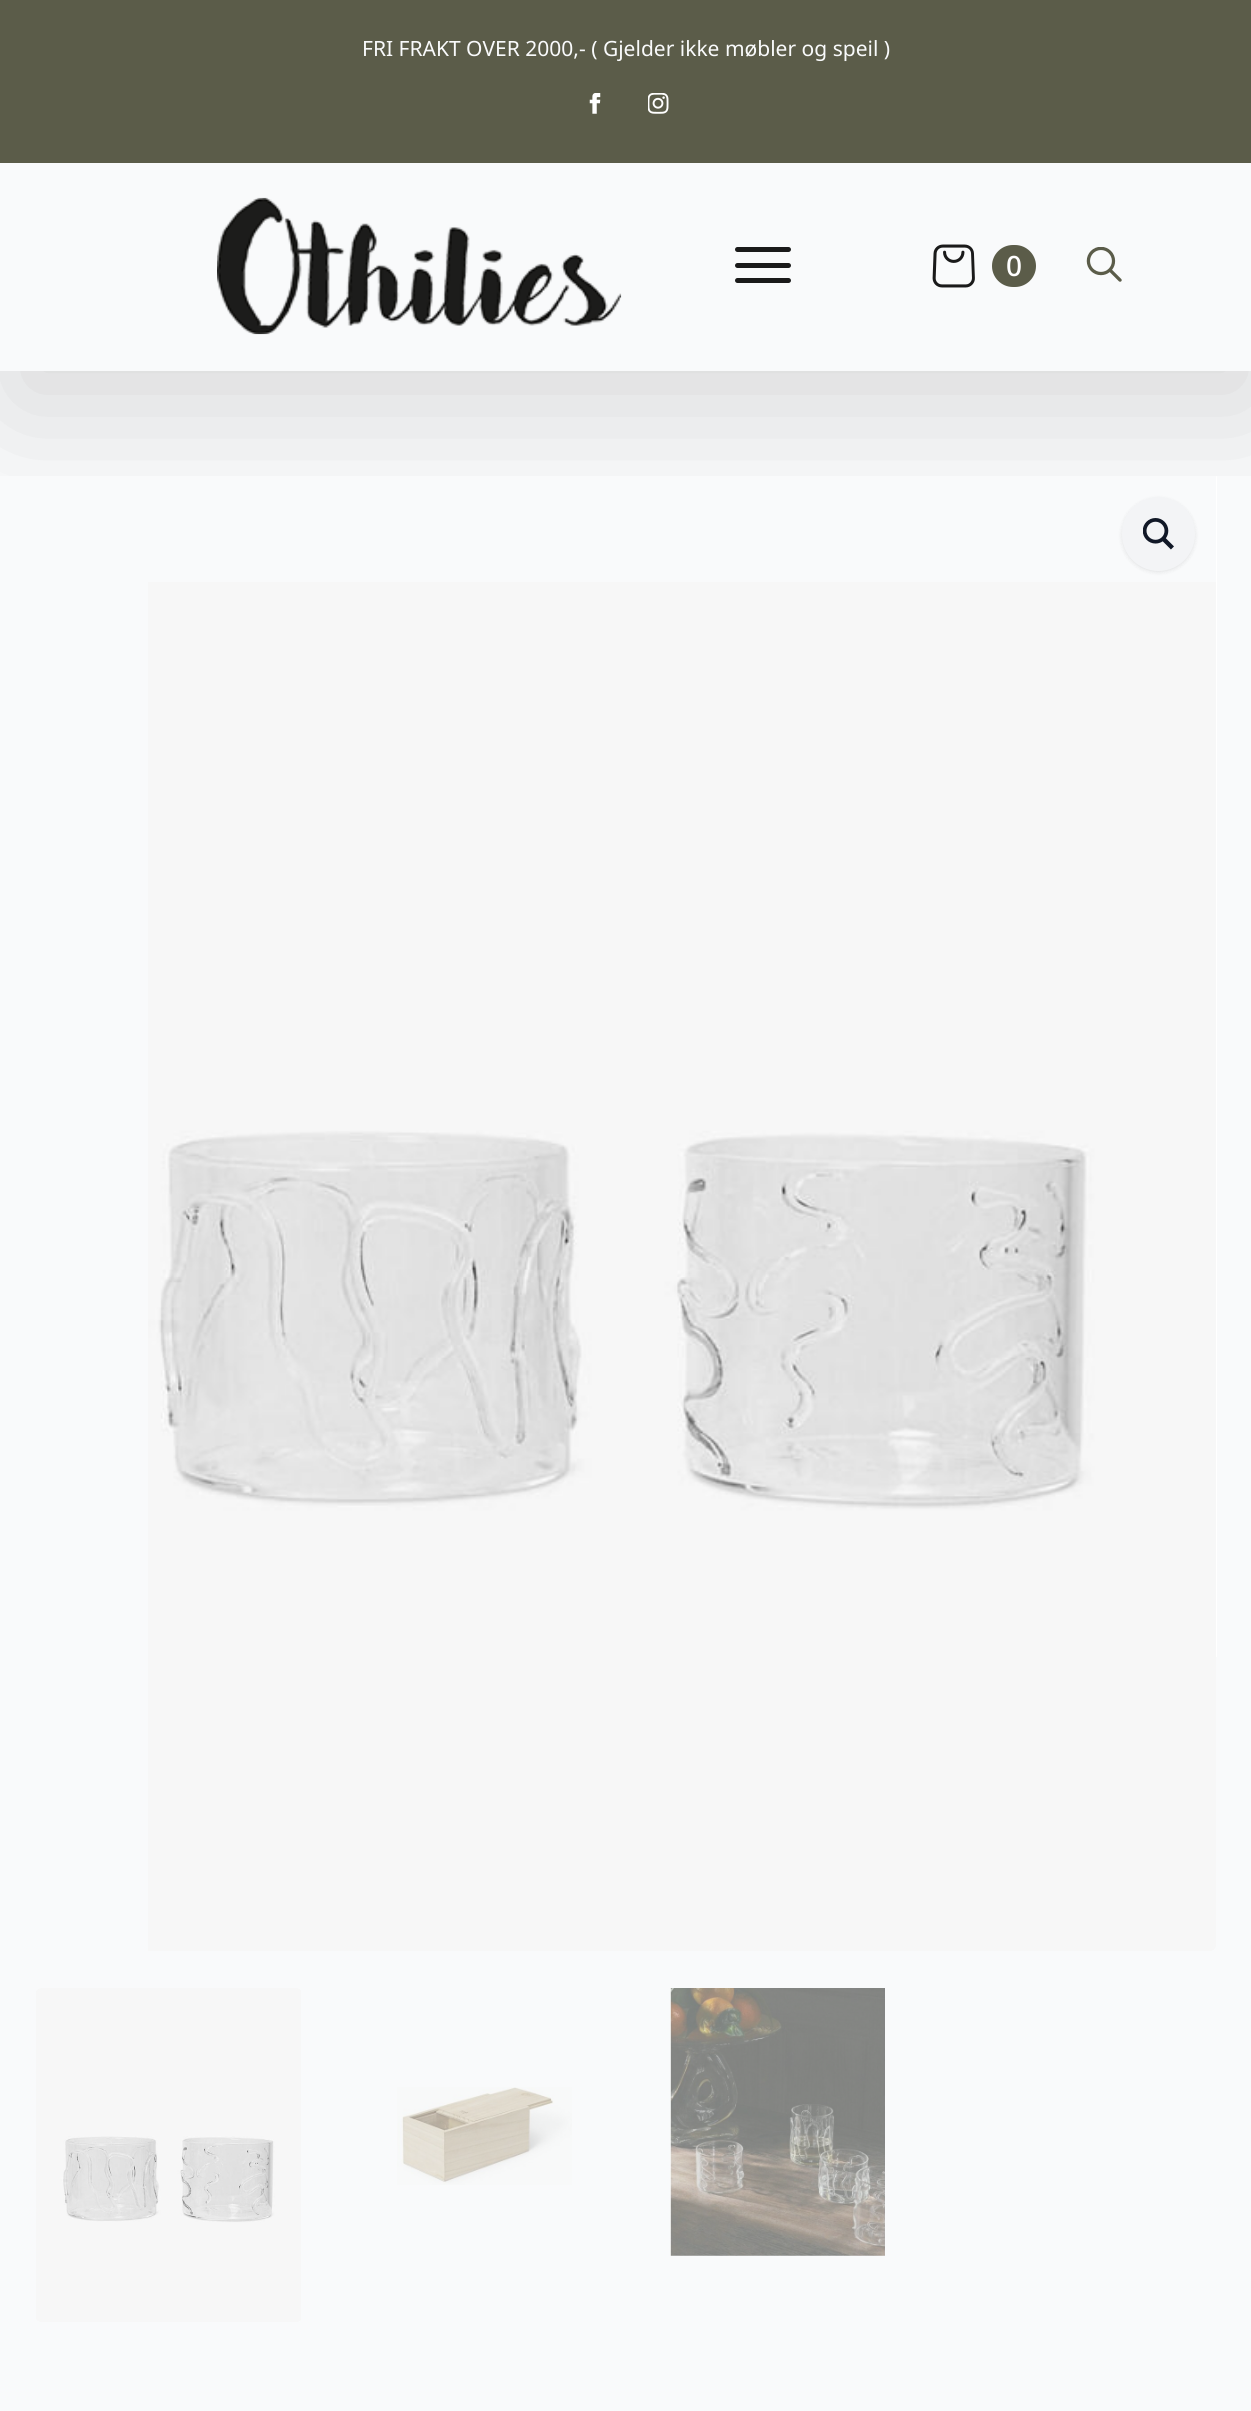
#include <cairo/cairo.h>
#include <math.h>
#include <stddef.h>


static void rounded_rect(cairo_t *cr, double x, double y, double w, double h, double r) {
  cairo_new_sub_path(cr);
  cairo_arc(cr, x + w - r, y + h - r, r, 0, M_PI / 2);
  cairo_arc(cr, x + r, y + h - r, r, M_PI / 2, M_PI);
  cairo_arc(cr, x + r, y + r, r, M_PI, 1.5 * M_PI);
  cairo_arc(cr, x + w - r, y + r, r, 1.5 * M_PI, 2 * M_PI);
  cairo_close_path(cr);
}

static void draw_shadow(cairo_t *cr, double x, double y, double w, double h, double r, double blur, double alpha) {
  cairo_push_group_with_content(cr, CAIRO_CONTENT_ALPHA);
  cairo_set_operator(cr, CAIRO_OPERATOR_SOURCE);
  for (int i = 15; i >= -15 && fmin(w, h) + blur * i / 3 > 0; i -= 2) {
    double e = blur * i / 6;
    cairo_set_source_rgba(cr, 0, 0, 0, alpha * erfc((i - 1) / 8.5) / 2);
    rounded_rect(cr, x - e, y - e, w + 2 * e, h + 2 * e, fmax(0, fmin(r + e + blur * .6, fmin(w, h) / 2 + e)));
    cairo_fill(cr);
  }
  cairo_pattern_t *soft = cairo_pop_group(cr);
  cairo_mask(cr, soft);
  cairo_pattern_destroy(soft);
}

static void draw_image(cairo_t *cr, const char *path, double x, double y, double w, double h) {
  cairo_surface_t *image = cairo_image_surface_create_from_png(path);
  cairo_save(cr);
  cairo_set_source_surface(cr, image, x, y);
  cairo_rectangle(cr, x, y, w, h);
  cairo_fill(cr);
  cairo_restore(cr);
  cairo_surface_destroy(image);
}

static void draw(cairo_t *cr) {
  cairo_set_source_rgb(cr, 249 / 255.0, 250 / 255.0, 251 / 255.0);
  cairo_paint(cr);
  cairo_save(cr);
  cairo_rectangle(cr, 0, 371, 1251, 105);
  cairo_clip(cr);
  cairo_set_source_rgb(cr, 0, 0, 0);
  draw_shadow(cr, 9, 35, 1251, 371, 0, 65.5, 0.14);
  cairo_restore(cr);
  cairo_set_source_rgb(cr, 91 / 255.0, 92 / 255.0, 73 / 255.0);
  cairo_rectangle(cr, 0, 0, 1251, 163);
  cairo_fill(cr);
  draw_image(cr, "images/1.png", 589, 93, 12, 21);
  draw_image(cr, "images/2.png", 648, 93, 21, 21);
  draw_image(cr, "images/3.png", 217, 197, 405, 138);
  cairo_set_source_rgb(cr, 26 / 255.0, 26 / 255.0, 26 / 255.0);
  rounded_rect(cr, 735, 263, 56, 5, 2.5);
  cairo_fill(cr);
  rounded_rect(cr, 735, 247, 56, 5, 2.5);
  cairo_fill(cr);
  rounded_rect(cr, 735, 278, 56, 5, 2.5);
  cairo_fill(cr);
  draw_image(cr, "images/4.png", 932, 244, 43, 44);
  cairo_set_source_rgb(cr, 91 / 255.0, 92 / 255.0, 73 / 255.0);
  rounded_rect(cr, 992, 245, 44, 42, 21);
  cairo_fill(cr);
  draw_image(cr, "images/5.png", 1086, 247, 36, 35);
  draw_image(cr, "images/6.png", 148, 582, 1068, 1369);
  draw_image(cr, "images/7.png", 1216, 476, 1, 1181);
  cairo_set_source_rgb(cr, 0, 0, 0);
  draw_shadow(cr, 1122, 499, 73, 73, 36.5, 2, 0.05);
  draw_shadow(cr, 1122, 499, 73, 73, 36.5, 2.5, 0.05);
  cairo_set_source_rgb(cr, 243 / 255.0, 244 / 255.0, 246 / 255.0);
  rounded_rect(cr, 1122, 497, 73, 74, 36.5);
  cairo_fill(cr);
  draw_image(cr, "images/8.png", 1143, 518, 31, 32);
  draw_image(cr, "images/9.png", 36, 1988, 265, 334);
  draw_image(cr, "images/10.png", 397, 2087, 175, 98);
  draw_image(cr, "images/11.png", 670, 1988, 215, 268);
  cairo_select_font_face(cr, "Noto Sans", CAIRO_FONT_SLANT_NORMAL, CAIRO_FONT_WEIGHT_NORMAL);
  cairo_set_font_size(cr, 21);
  cairo_set_source_rgb(cr, 249 / 255.0, 250 / 255.0, 251 / 255.0);
  cairo_move_to(cr, 362, 56);
  cairo_show_text(cr, "FRI FRAKT OVER 2000,- ( Gjelder ikke møbler og speil )");
  cairo_select_font_face(cr, "Noto Sans Medium", CAIRO_FONT_SLANT_NORMAL, CAIRO_FONT_WEIGHT_NORMAL);
  cairo_set_font_size(cr, 28);
  cairo_set_source_rgb(cr, 1, 1, 1);
  cairo_move_to(cr, 1006, 276);
  cairo_show_text(cr, "0");
}

int main(void) {
  cairo_surface_t *surface = cairo_image_surface_create(CAIRO_FORMAT_RGB24, 1251, 2411);
  cairo_t *cr = cairo_create(surface);
  cairo_font_options_t *options = cairo_font_options_create();
  cairo_font_options_set_hint_metrics(options, CAIRO_HINT_METRICS_OFF);
  cairo_font_options_set_hint_style(options, CAIRO_HINT_STYLE_NONE);
  cairo_set_font_options(cr, options);
  cairo_set_miter_limit(cr, 4);
  draw(cr);
  cairo_surface_write_to_png(surface, "out.png");
  cairo_font_options_destroy(options);
  cairo_destroy(cr);
  cairo_surface_destroy(surface);
  return 0;
}
